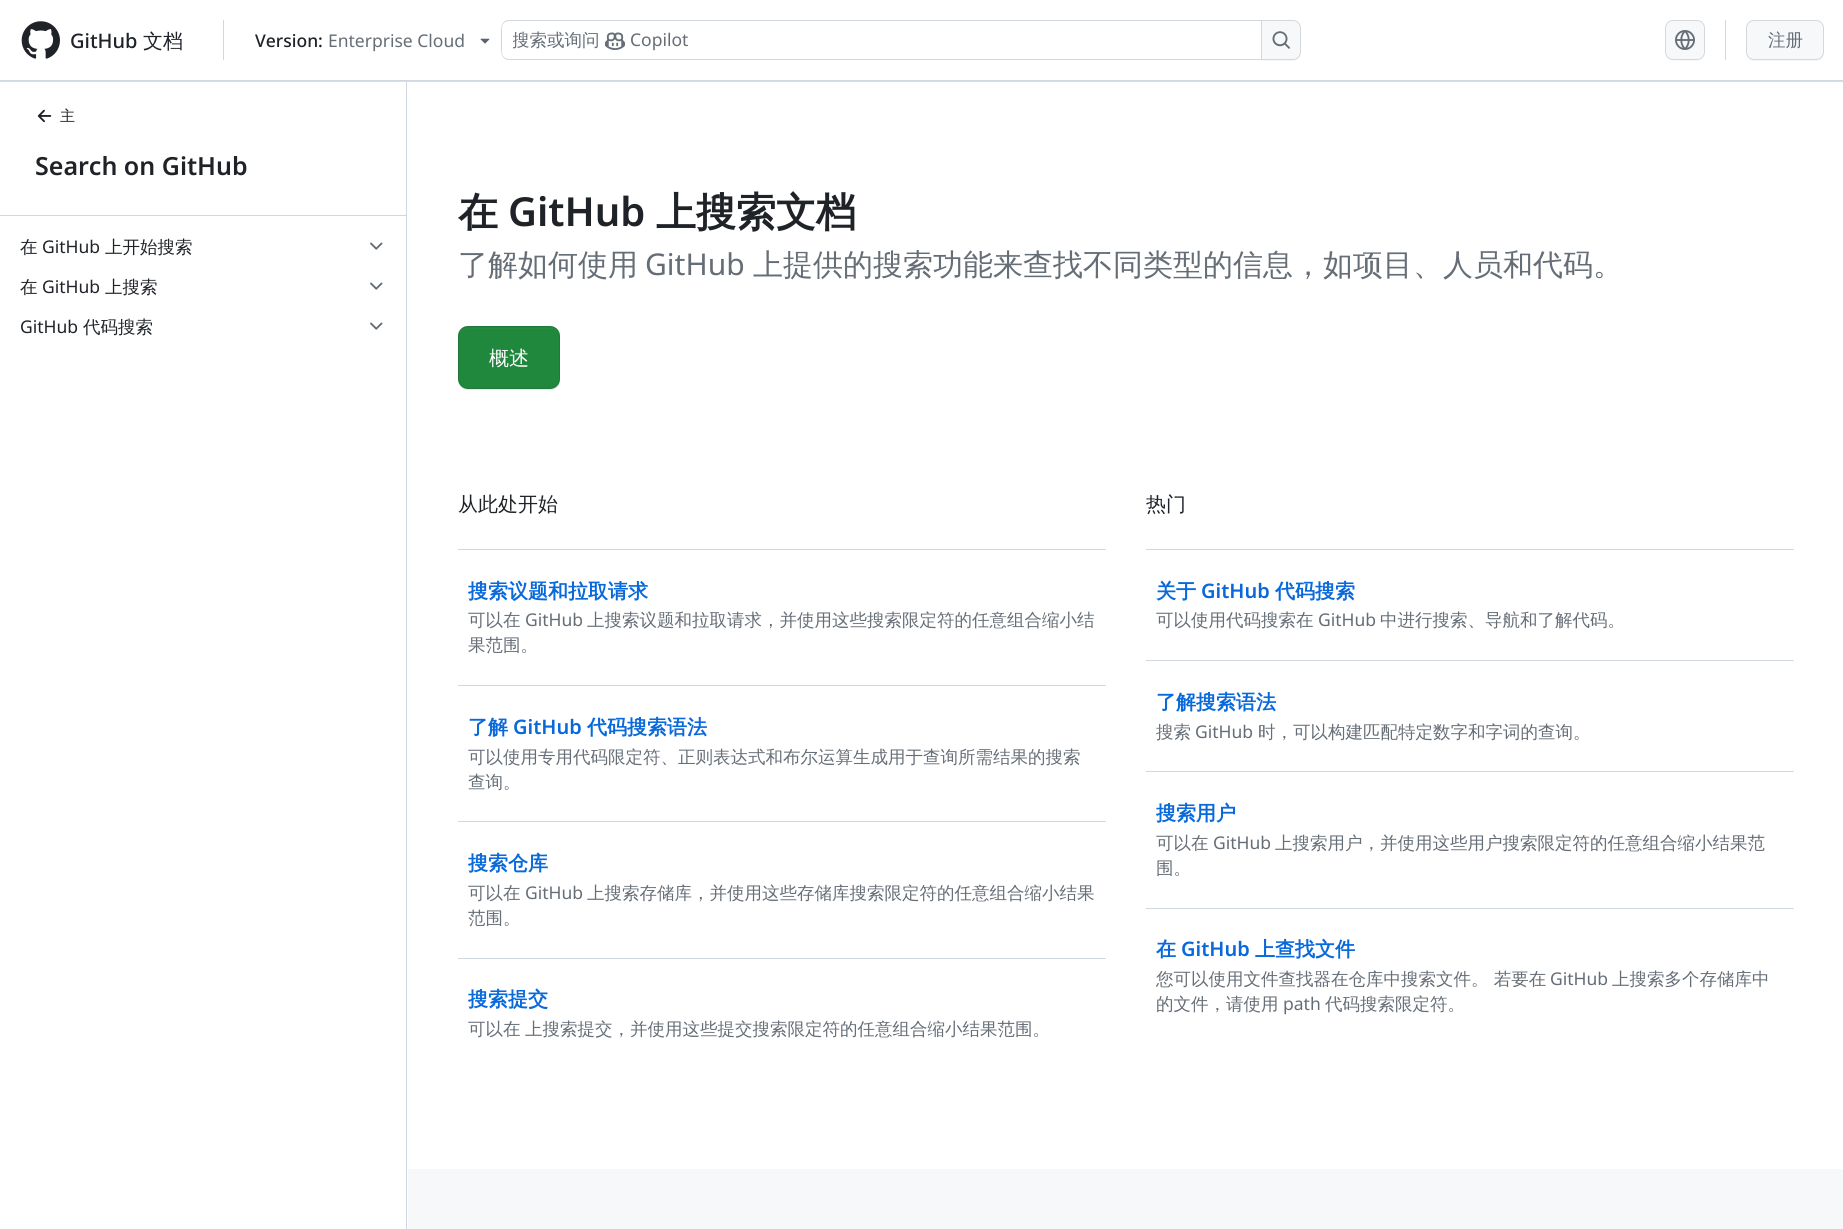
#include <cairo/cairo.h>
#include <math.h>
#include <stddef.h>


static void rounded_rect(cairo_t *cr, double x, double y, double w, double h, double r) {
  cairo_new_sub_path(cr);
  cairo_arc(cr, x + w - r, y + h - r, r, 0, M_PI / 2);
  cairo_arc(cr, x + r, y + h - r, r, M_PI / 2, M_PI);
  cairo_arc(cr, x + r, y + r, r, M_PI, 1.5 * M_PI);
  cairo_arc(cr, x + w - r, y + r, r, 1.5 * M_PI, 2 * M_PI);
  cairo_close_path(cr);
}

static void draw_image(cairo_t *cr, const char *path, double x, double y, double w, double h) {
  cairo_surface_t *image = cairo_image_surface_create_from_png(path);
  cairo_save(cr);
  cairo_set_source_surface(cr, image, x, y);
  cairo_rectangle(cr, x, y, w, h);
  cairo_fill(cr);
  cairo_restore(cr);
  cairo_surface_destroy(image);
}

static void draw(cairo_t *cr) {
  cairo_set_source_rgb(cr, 1, 1, 1);
  cairo_paint(cr);
  cairo_set_source_rgb(cr, 216 / 255.0, 222 / 255.0, 228 / 255.0);
  cairo_rectangle(cr, 0, 81, 1843, 1);
  cairo_fill(cr);
  cairo_set_source_rgb(cr, 208 / 255.0, 215 / 255.0, 222 / 255.0);
  cairo_rectangle(cr, 0, 80, 1843, 1);
  cairo_fill(cr);
  draw_image(cr, "images/1.png", 21, 21, 39, 38);
  cairo_rectangle(cr, 223, 20, 1, 40);
  cairo_fill(cr);
  draw_image(cr, "images/2.png", 480, 38, 10, 6);
  cairo_set_fill_rule(cr, CAIRO_FILL_RULE_EVEN_ODD);
  cairo_new_path(cr);
  cairo_move_to(cr, 509, 20);
  cairo_line_to(cr, 1261, 20);
  cairo_line_to(cr, 1261, 60);
  cairo_line_to(cr, 509, 60);
  cairo_curve_to(cr, 499, 60, 501, 46, 501, 40);
  cairo_curve_to(cr, 501, 34, 499, 20, 509, 20);
  cairo_close_path(cr);
  cairo_move_to(cr, 509, 21);
  cairo_line_to(cr, 1261, 21);
  cairo_line_to(cr, 1261, 59);
  cairo_line_to(cr, 509, 59);
  cairo_curve_to(cr, 505, 59, 502, 56, 502, 52);
  cairo_line_to(cr, 502, 28);
  cairo_curve_to(cr, 502, 24, 505, 21, 509, 21);
  cairo_close_path(cr);
  cairo_fill(cr);
  draw_image(cr, "images/3.png", 605, 32, 20, 18);
  cairo_set_source_rgb(cr, 246 / 255.0, 246 / 255.0, 246 / 255.0);
  cairo_set_fill_rule(cr, CAIRO_FILL_RULE_WINDING);
  cairo_new_path(cr);
  cairo_move_to(cr, 1261, 21);
  cairo_line_to(cr, 1261, 61);
  cairo_line_to(cr, 1293, 61);
  cairo_curve_to(cr, 1296, 61, 1299, 59, 1301, 56);
  cairo_curve_to(cr, 1299, 58, 1297, 60, 1294, 60);
  cairo_line_to(cr, 1261, 60);
  cairo_close_path(cr);
  cairo_fill(cr);
  cairo_set_source_rgb(cr, 246 / 255.0, 248 / 255.0, 250 / 255.0);
  cairo_new_path(cr);
  cairo_move_to(cr, 1261, 20);
  cairo_line_to(cr, 1293, 20);
  cairo_curve_to(cr, 1297.5, 20, 1301, 23.5, 1301, 28);
  cairo_line_to(cr, 1301, 52);
  cairo_curve_to(cr, 1301, 56.5, 1297.5, 60, 1293, 60);
  cairo_line_to(cr, 1261, 60);
  cairo_close_path(cr);
  cairo_fill(cr);
  cairo_new_path(cr);
  cairo_move_to(cr, 1261.5, 20.5);
  cairo_line_to(cr, 1293, 20.5);
  cairo_curve_to(cr, 1297, 20.5, 1300.5, 24, 1300.5, 28);
  cairo_line_to(cr, 1300.5, 52);
  cairo_curve_to(cr, 1300.5, 56, 1297, 59.5, 1293, 59.5);
  cairo_line_to(cr, 1261.5, 59.5);
  cairo_close_path(cr);
  cairo_set_source_rgba(cr, 31 / 255.0, 35 / 255.0, 40 / 255.0, 0.15);
  cairo_set_line_width(cr, 1);
  cairo_stroke(cr);
  draw_image(cr, "images/4.png", 1272, 31, 18, 18);
  cairo_set_source_rgb(cr, 246 / 255.0, 246 / 255.0, 246 / 255.0);
  cairo_new_path(cr);
  cairo_move_to(cr, 1665, 52);
  cairo_curve_to(cr, 1665, 63, 1678, 61, 1685, 61);
  cairo_curve_to(cr, 1692, 61, 1705, 63, 1705, 52);
  cairo_curve_to(cr, 1705, 63, 1691, 60, 1685, 60);
  cairo_curve_to(cr, 1679, 60, 1665, 63, 1665, 52);
  cairo_close_path(cr);
  cairo_fill(cr);
  cairo_set_source_rgb(cr, 246 / 255.0, 248 / 255.0, 250 / 255.0);
  rounded_rect(cr, 1665, 20, 40, 40, 8);
  cairo_fill(cr);
  rounded_rect(cr, 1665.5, 20.5, 39, 39, 7.5);
  cairo_set_source_rgba(cr, 31 / 255.0, 35 / 255.0, 40 / 255.0, 0.15);
  cairo_stroke(cr);
  draw_image(cr, "images/5.png", 1675, 30, 20, 20);
  cairo_set_source_rgb(cr, 208 / 255.0, 215 / 255.0, 222 / 255.0);
  cairo_rectangle(cr, 1725, 20, 1, 40);
  cairo_fill(cr);
  cairo_set_source_rgb(cr, 246 / 255.0, 246 / 255.0, 246 / 255.0);
  cairo_new_path(cr);
  cairo_move_to(cr, 1746, 27);
  cairo_line_to(cr, 1746, 45);
  cairo_curve_to(cr, 1746, 62, 1747, 61, 1764, 61);
  cairo_line_to(cr, 1806, 61);
  cairo_curve_to(cr, 1823, 61, 1824, 62, 1824, 45);
  cairo_line_to(cr, 1824, 27);
  cairo_line_to(cr, 1824, 44);
  cairo_curve_to(cr, 1824, 61, 1823, 60, 1806, 60);
  cairo_line_to(cr, 1764, 60);
  cairo_curve_to(cr, 1747, 60, 1746, 61, 1746, 44);
  cairo_close_path(cr);
  cairo_fill(cr);
  cairo_set_source_rgb(cr, 246 / 255.0, 248 / 255.0, 250 / 255.0);
  rounded_rect(cr, 1746, 20, 78, 40, 8);
  cairo_fill(cr);
  rounded_rect(cr, 1746.5, 20.5, 77, 39, 7.5);
  cairo_set_source_rgba(cr, 31 / 255.0, 35 / 255.0, 40 / 255.0, 0.15);
  cairo_stroke(cr);
  cairo_set_source_rgb(cr, 208 / 255.0, 215 / 255.0, 222 / 255.0);
  cairo_rectangle(cr, 406, 81, 1, 1148);
  cairo_fill(cr);
  cairo_rectangle(cr, 0, 215, 406, 1);
  cairo_fill(cr);
  draw_image(cr, "images/6.png", 37, 109, 15, 14);
  draw_image(cr, "images/7.png", 370, 242, 13, 8);
  draw_image(cr, "images/7.png", 370, 282, 13, 8);
  draw_image(cr, "images/7.png", 370, 322, 13, 8);
  cairo_set_source_rgb(cr, 233 / 255.0, 233 / 255.0, 234 / 255.0);
  cairo_new_path(cr);
  cairo_move_to(cr, 458, 383);
  cairo_curve_to(cr, 460, 387, 464, 390, 468, 390);
  cairo_line_to(cr, 550, 390);
  cairo_curve_to(cr, 556, 390, 560, 386, 560, 380);
  cairo_line_to(cr, 560, 379);
  cairo_curve_to(cr, 560, 384, 556, 389, 550, 389);
  cairo_line_to(cr, 468, 389);
  cairo_curve_to(cr, 464, 389, 460, 386, 458, 383);
  cairo_close_path(cr);
  cairo_fill(cr);
  cairo_set_source_rgb(cr, 31 / 255.0, 136 / 255.0, 61 / 255.0);
  rounded_rect(cr, 458, 326, 102, 63, 10);
  cairo_fill(cr);
  cairo_set_source_rgb(cr, 38 / 255.0, 140 / 255.0, 67 / 255.0);
  cairo_new_path(cr);
  cairo_move_to(cr, 468, 329);
  cairo_line_to(cr, 550, 329);
  cairo_curve_to(cr, 555, 329, 559, 333, 559, 338);
  cairo_curve_to(cr, 559, 325, 545, 328, 536, 328);
  cairo_line_to(cr, 482, 328);
  cairo_curve_to(cr, 473, 328, 459, 325, 459, 338);
  cairo_curve_to(cr, 459, 333, 463, 329, 468, 329);
  cairo_close_path(cr);
  cairo_fill(cr);
  rounded_rect(cr, 458.5, 326.5, 101, 62, 9.5);
  cairo_set_source_rgba(cr, 31 / 255.0, 35 / 255.0, 40 / 255.0, 0.15);
  cairo_stroke(cr);
  cairo_set_source_rgb(cr, 208 / 255.0, 215 / 255.0, 222 / 255.0);
  cairo_rectangle(cr, 458, 549, 648, 1);
  cairo_fill(cr);
  cairo_rectangle(cr, 458, 685, 648, 1);
  cairo_fill(cr);
  cairo_rectangle(cr, 458, 821, 648, 1);
  cairo_fill(cr);
  cairo_rectangle(cr, 458, 958, 648, 1);
  cairo_fill(cr);
  cairo_rectangle(cr, 1146, 549, 648, 1);
  cairo_fill(cr);
  cairo_rectangle(cr, 1146, 660, 648, 1);
  cairo_fill(cr);
  cairo_rectangle(cr, 1146, 771, 648, 1);
  cairo_fill(cr);
  cairo_rectangle(cr, 1146, 908, 648, 1);
  cairo_fill(cr);
  cairo_set_source_rgb(cr, 246 / 255.0, 248 / 255.0, 250 / 255.0);
  cairo_rectangle(cr, 408, 1169, 1435, 60);
  cairo_fill(cr);
  cairo_select_font_face(cr, "Noto Sans Medium", CAIRO_FONT_SLANT_NORMAL, CAIRO_FONT_WEIGHT_NORMAL);
  cairo_set_font_size(cr, 20);
  cairo_set_source_rgb(cr, 31 / 255.0, 35 / 255.0, 40 / 255.0);
  cairo_move_to(cr, 70, 48);
  cairo_show_text(cr, "GitHub");
  cairo_select_font_face(cr, "WenQuanYi Zen Hei Medium", CAIRO_FONT_SLANT_NORMAL, CAIRO_FONT_WEIGHT_NORMAL);
  cairo_move_to(cr, 143, 48);
  cairo_show_text(cr, "文档");
  cairo_select_font_face(cr, "Noto Sans Medium", CAIRO_FONT_SLANT_NORMAL, CAIRO_FONT_WEIGHT_NORMAL);
  cairo_set_font_size(cr, 17.5);
  cairo_move_to(cr, 255, 47);
  cairo_show_text(cr, "Version:");
  cairo_select_font_face(cr, "Noto Sans", CAIRO_FONT_SLANT_NORMAL, CAIRO_FONT_WEIGHT_NORMAL);
  cairo_set_source_rgb(cr, 101 / 255.0, 109 / 255.0, 118 / 255.0);
  cairo_move_to(cr, 328, 47);
  cairo_show_text(cr, "Enterprise Cloud");
  cairo_save(cr);
  cairo_rectangle(cr, 513, 20, 748, 40);
  cairo_clip(cr);
  cairo_select_font_face(cr, "WenQuanYi Zen Hei Medium", CAIRO_FONT_SLANT_NORMAL, CAIRO_FONT_WEIGHT_NORMAL);
  cairo_move_to(cr, 512, 46);
  cairo_show_text(cr, "搜索或询问");
  cairo_restore(cr);
  cairo_move_to(cr, 630, 46);
  cairo_show_text(cr, "Copilot");
  cairo_select_font_face(cr, "WenQuanYi Zen Hei Medium", CAIRO_FONT_SLANT_NORMAL, CAIRO_FONT_WEIGHT_NORMAL);
  cairo_move_to(cr, 1768, 46);
  cairo_show_text(cr, "注册");
  cairo_set_font_size(cr, 15);
  cairo_set_source_rgb(cr, 31 / 255.0, 35 / 255.0, 40 / 255.0);
  cairo_move_to(cr, 60, 121);
  cairo_show_text(cr, "主");
  cairo_select_font_face(cr, "Noto Sans SemiBold", CAIRO_FONT_SLANT_NORMAL, CAIRO_FONT_WEIGHT_NORMAL);
  cairo_set_font_size(cr, 25);
  cairo_move_to(cr, 35, 175);
  cairo_show_text(cr, "Search on GitHub");
  cairo_select_font_face(cr, "WenQuanYi Zen Hei Medium", CAIRO_FONT_SLANT_NORMAL, CAIRO_FONT_WEIGHT_NORMAL);
  cairo_set_font_size(cr, 17.5);
  cairo_move_to(cr, 20, 253);
  cairo_show_text(cr, "在");
  cairo_select_font_face(cr, "Noto Sans", CAIRO_FONT_SLANT_NORMAL, CAIRO_FONT_WEIGHT_NORMAL);
  cairo_move_to(cr, 42, 253);
  cairo_show_text(cr, "GitHub");
  cairo_select_font_face(cr, "WenQuanYi Zen Hei Medium", CAIRO_FONT_SLANT_NORMAL, CAIRO_FONT_WEIGHT_NORMAL);
  cairo_move_to(cr, 105, 253);
  cairo_show_text(cr, "上开始搜索");
  cairo_move_to(cr, 20, 293);
  cairo_show_text(cr, "在");
  cairo_select_font_face(cr, "Noto Sans", CAIRO_FONT_SLANT_NORMAL, CAIRO_FONT_WEIGHT_NORMAL);
  cairo_move_to(cr, 42, 293);
  cairo_show_text(cr, "GitHub");
  cairo_select_font_face(cr, "WenQuanYi Zen Hei Medium", CAIRO_FONT_SLANT_NORMAL, CAIRO_FONT_WEIGHT_NORMAL);
  cairo_move_to(cr, 105, 293);
  cairo_show_text(cr, "上搜索");
  cairo_select_font_face(cr, "Noto Sans", CAIRO_FONT_SLANT_NORMAL, CAIRO_FONT_WEIGHT_NORMAL);
  cairo_move_to(cr, 20, 333);
  cairo_show_text(cr, "GitHub");
  cairo_select_font_face(cr, "WenQuanYi Zen Hei Medium", CAIRO_FONT_SLANT_NORMAL, CAIRO_FONT_WEIGHT_NORMAL);
  cairo_move_to(cr, 83, 333);
  cairo_show_text(cr, "代码搜索");
  cairo_select_font_face(cr, "WenQuanYi Zen Hei", CAIRO_FONT_SLANT_NORMAL, CAIRO_FONT_WEIGHT_BOLD);
  cairo_set_font_size(cr, 40);
  cairo_move_to(cr, 458, 226);
  cairo_show_text(cr, "在");
  cairo_select_font_face(cr, "Noto Sans SemiBold", CAIRO_FONT_SLANT_NORMAL, CAIRO_FONT_WEIGHT_NORMAL);
  cairo_move_to(cr, 508, 226);
  cairo_show_text(cr, "GitHub");
  cairo_select_font_face(cr, "WenQuanYi Zen Hei", CAIRO_FONT_SLANT_NORMAL, CAIRO_FONT_WEIGHT_BOLD);
  cairo_move_to(cr, 656, 226);
  cairo_show_text(cr, "上搜索文档");
  cairo_select_font_face(cr, "WenQuanYi Zen Hei Medium", CAIRO_FONT_SLANT_NORMAL, CAIRO_FONT_WEIGHT_NORMAL);
  cairo_set_font_size(cr, 30);
  cairo_set_source_rgb(cr, 101 / 255.0, 109 / 255.0, 118 / 255.0);
  cairo_move_to(cr, 458, 275);
  cairo_show_text(cr, "了解如何使用");
  cairo_select_font_face(cr, "Noto Sans", CAIRO_FONT_SLANT_NORMAL, CAIRO_FONT_WEIGHT_NORMAL);
  cairo_move_to(cr, 645, 275);
  cairo_show_text(cr, "GitHub");
  cairo_select_font_face(cr, "WenQuanYi Zen Hei Medium", CAIRO_FONT_SLANT_NORMAL, CAIRO_FONT_WEIGHT_NORMAL);
  cairo_move_to(cr, 753, 275);
  cairo_show_text(cr, "上提供的搜索功能来查找不同类型的信息，如项目、人员和代码。");
  cairo_set_font_size(cr, 20);
  cairo_set_source_rgb(cr, 1, 1, 1);
  cairo_move_to(cr, 489, 365);
  cairo_show_text(cr, "概述");
  cairo_set_source_rgb(cr, 31 / 255.0, 35 / 255.0, 40 / 255.0);
  cairo_move_to(cr, 458, 511);
  cairo_show_text(cr, "从此处开始");
  cairo_select_font_face(cr, "WenQuanYi Zen Hei", CAIRO_FONT_SLANT_NORMAL, CAIRO_FONT_WEIGHT_BOLD);
  cairo_set_source_rgb(cr, 9 / 255.0, 105 / 255.0, 218 / 255.0);
  cairo_move_to(cr, 468, 598);
  cairo_show_text(cr, "搜索议题和拉取请求");
  cairo_select_font_face(cr, "WenQuanYi Zen Hei Medium", CAIRO_FONT_SLANT_NORMAL, CAIRO_FONT_WEIGHT_NORMAL);
  cairo_set_font_size(cr, 17.5);
  cairo_set_source_rgb(cr, 101 / 255.0, 109 / 255.0, 118 / 255.0);
  cairo_move_to(cr, 468, 626);
  cairo_show_text(cr, "可以在");
  cairo_select_font_face(cr, "Noto Sans", CAIRO_FONT_SLANT_NORMAL, CAIRO_FONT_WEIGHT_NORMAL);
  cairo_move_to(cr, 525, 626);
  cairo_show_text(cr, "GitHub");
  cairo_select_font_face(cr, "WenQuanYi Zen Hei Medium", CAIRO_FONT_SLANT_NORMAL, CAIRO_FONT_WEIGHT_NORMAL);
  cairo_move_to(cr, 587, 626);
  cairo_show_text(cr, "上搜索议题和拉取请求，并使用这些搜索限定符的任意组合缩小结");
  cairo_move_to(cr, 468, 651);
  cairo_show_text(cr, "果范围。");
  cairo_select_font_face(cr, "WenQuanYi Zen Hei", CAIRO_FONT_SLANT_NORMAL, CAIRO_FONT_WEIGHT_BOLD);
  cairo_set_font_size(cr, 20);
  cairo_set_source_rgb(cr, 9 / 255.0, 105 / 255.0, 218 / 255.0);
  cairo_move_to(cr, 468, 734);
  cairo_show_text(cr, "了解");
  cairo_select_font_face(cr, "Noto Sans SemiBold", CAIRO_FONT_SLANT_NORMAL, CAIRO_FONT_WEIGHT_NORMAL);
  cairo_move_to(cr, 513, 734);
  cairo_show_text(cr, "GitHub");
  cairo_select_font_face(cr, "WenQuanYi Zen Hei", CAIRO_FONT_SLANT_NORMAL, CAIRO_FONT_WEIGHT_BOLD);
  cairo_move_to(cr, 587, 734);
  cairo_show_text(cr, "代码搜索语法");
  cairo_select_font_face(cr, "WenQuanYi Zen Hei Medium", CAIRO_FONT_SLANT_NORMAL, CAIRO_FONT_WEIGHT_NORMAL);
  cairo_set_font_size(cr, 17.5);
  cairo_set_source_rgb(cr, 101 / 255.0, 109 / 255.0, 118 / 255.0);
  cairo_move_to(cr, 468, 763);
  cairo_show_text(cr, "可以使用专用代码限定符、正则表达式和布尔运算生成用于查询所需结果的搜索");
  cairo_move_to(cr, 468, 788);
  cairo_show_text(cr, "查询。");
  cairo_select_font_face(cr, "WenQuanYi Zen Hei", CAIRO_FONT_SLANT_NORMAL, CAIRO_FONT_WEIGHT_BOLD);
  cairo_set_font_size(cr, 20);
  cairo_set_source_rgb(cr, 9 / 255.0, 105 / 255.0, 218 / 255.0);
  cairo_move_to(cr, 468, 870);
  cairo_show_text(cr, "搜索仓库");
  cairo_select_font_face(cr, "WenQuanYi Zen Hei Medium", CAIRO_FONT_SLANT_NORMAL, CAIRO_FONT_WEIGHT_NORMAL);
  cairo_set_font_size(cr, 17.5);
  cairo_set_source_rgb(cr, 101 / 255.0, 109 / 255.0, 118 / 255.0);
  cairo_move_to(cr, 468, 899);
  cairo_show_text(cr, "可以在");
  cairo_select_font_face(cr, "Noto Sans", CAIRO_FONT_SLANT_NORMAL, CAIRO_FONT_WEIGHT_NORMAL);
  cairo_move_to(cr, 525, 899);
  cairo_show_text(cr, "GitHub");
  cairo_select_font_face(cr, "WenQuanYi Zen Hei Medium", CAIRO_FONT_SLANT_NORMAL, CAIRO_FONT_WEIGHT_NORMAL);
  cairo_move_to(cr, 587, 899);
  cairo_show_text(cr, "上搜索存储库，并使用这些存储库搜索限定符的任意组合缩小结果");
  cairo_move_to(cr, 468, 924);
  cairo_show_text(cr, "范围。");
  cairo_select_font_face(cr, "WenQuanYi Zen Hei", CAIRO_FONT_SLANT_NORMAL, CAIRO_FONT_WEIGHT_BOLD);
  cairo_set_font_size(cr, 20);
  cairo_set_source_rgb(cr, 9 / 255.0, 105 / 255.0, 218 / 255.0);
  cairo_move_to(cr, 468, 1006);
  cairo_show_text(cr, "搜索提交");
  cairo_select_font_face(cr, "WenQuanYi Zen Hei Medium", CAIRO_FONT_SLANT_NORMAL, CAIRO_FONT_WEIGHT_NORMAL);
  cairo_set_font_size(cr, 17.5);
  cairo_set_source_rgb(cr, 101 / 255.0, 109 / 255.0, 118 / 255.0);
  cairo_move_to(cr, 468, 1035);
  cairo_show_text(cr, "可以在");
  cairo_move_to(cr, 525, 1035);
  cairo_show_text(cr, "上搜索提交，并使用这些提交搜索限定符的任意组合缩小结果范围。");
  cairo_set_font_size(cr, 20);
  cairo_set_source_rgb(cr, 31 / 255.0, 35 / 255.0, 40 / 255.0);
  cairo_move_to(cr, 1146, 511);
  cairo_show_text(cr, "热门");
  cairo_select_font_face(cr, "WenQuanYi Zen Hei", CAIRO_FONT_SLANT_NORMAL, CAIRO_FONT_WEIGHT_BOLD);
  cairo_set_source_rgb(cr, 9 / 255.0, 105 / 255.0, 218 / 255.0);
  cairo_move_to(cr, 1156, 598);
  cairo_show_text(cr, "关于");
  cairo_select_font_face(cr, "Noto Sans SemiBold", CAIRO_FONT_SLANT_NORMAL, CAIRO_FONT_WEIGHT_NORMAL);
  cairo_move_to(cr, 1201, 598);
  cairo_show_text(cr, "GitHub");
  cairo_select_font_face(cr, "WenQuanYi Zen Hei", CAIRO_FONT_SLANT_NORMAL, CAIRO_FONT_WEIGHT_BOLD);
  cairo_move_to(cr, 1275, 598);
  cairo_show_text(cr, "代码搜索");
  cairo_select_font_face(cr, "WenQuanYi Zen Hei Medium", CAIRO_FONT_SLANT_NORMAL, CAIRO_FONT_WEIGHT_NORMAL);
  cairo_set_font_size(cr, 17.5);
  cairo_set_source_rgb(cr, 101 / 255.0, 109 / 255.0, 118 / 255.0);
  cairo_move_to(cr, 1156, 626);
  cairo_show_text(cr, "可以使用代码搜索在");
  cairo_select_font_face(cr, "Noto Sans", CAIRO_FONT_SLANT_NORMAL, CAIRO_FONT_WEIGHT_NORMAL);
  cairo_move_to(cr, 1318, 626);
  cairo_show_text(cr, "GitHub");
  cairo_select_font_face(cr, "WenQuanYi Zen Hei Medium", CAIRO_FONT_SLANT_NORMAL, CAIRO_FONT_WEIGHT_NORMAL);
  cairo_move_to(cr, 1380, 626);
  cairo_show_text(cr, "中进行搜索、导航和了解代码。");
  cairo_select_font_face(cr, "WenQuanYi Zen Hei", CAIRO_FONT_SLANT_NORMAL, CAIRO_FONT_WEIGHT_BOLD);
  cairo_set_font_size(cr, 20);
  cairo_set_source_rgb(cr, 9 / 255.0, 105 / 255.0, 218 / 255.0);
  cairo_move_to(cr, 1156, 709);
  cairo_show_text(cr, "了解搜索语法");
  cairo_select_font_face(cr, "WenQuanYi Zen Hei Medium", CAIRO_FONT_SLANT_NORMAL, CAIRO_FONT_WEIGHT_NORMAL);
  cairo_set_font_size(cr, 17.5);
  cairo_set_source_rgb(cr, 101 / 255.0, 109 / 255.0, 118 / 255.0);
  cairo_move_to(cr, 1156, 738);
  cairo_show_text(cr, "搜索");
  cairo_select_font_face(cr, "Noto Sans", CAIRO_FONT_SLANT_NORMAL, CAIRO_FONT_WEIGHT_NORMAL);
  cairo_move_to(cr, 1195, 738);
  cairo_show_text(cr, "GitHub");
  cairo_select_font_face(cr, "WenQuanYi Zen Hei Medium", CAIRO_FONT_SLANT_NORMAL, CAIRO_FONT_WEIGHT_NORMAL);
  cairo_move_to(cr, 1258, 738);
  cairo_show_text(cr, "时，可以构建匹配特定数字和字词的查询。");
  cairo_select_font_face(cr, "WenQuanYi Zen Hei", CAIRO_FONT_SLANT_NORMAL, CAIRO_FONT_WEIGHT_BOLD);
  cairo_set_font_size(cr, 20);
  cairo_set_source_rgb(cr, 9 / 255.0, 105 / 255.0, 218 / 255.0);
  cairo_move_to(cr, 1156, 820);
  cairo_show_text(cr, "搜索用户");
  cairo_select_font_face(cr, "WenQuanYi Zen Hei Medium", CAIRO_FONT_SLANT_NORMAL, CAIRO_FONT_WEIGHT_NORMAL);
  cairo_set_font_size(cr, 17.5);
  cairo_set_source_rgb(cr, 101 / 255.0, 109 / 255.0, 118 / 255.0);
  cairo_move_to(cr, 1156, 849);
  cairo_show_text(cr, "可以在");
  cairo_select_font_face(cr, "Noto Sans", CAIRO_FONT_SLANT_NORMAL, CAIRO_FONT_WEIGHT_NORMAL);
  cairo_move_to(cr, 1213, 849);
  cairo_show_text(cr, "GitHub");
  cairo_select_font_face(cr, "WenQuanYi Zen Hei Medium", CAIRO_FONT_SLANT_NORMAL, CAIRO_FONT_WEIGHT_NORMAL);
  cairo_move_to(cr, 1275, 849);
  cairo_show_text(cr, "上搜索用户，并使用这些用户搜索限定符的任意组合缩小结果范");
  cairo_move_to(cr, 1156, 874);
  cairo_show_text(cr, "围。");
  cairo_select_font_face(cr, "WenQuanYi Zen Hei", CAIRO_FONT_SLANT_NORMAL, CAIRO_FONT_WEIGHT_BOLD);
  cairo_set_font_size(cr, 20);
  cairo_set_source_rgb(cr, 9 / 255.0, 105 / 255.0, 218 / 255.0);
  cairo_move_to(cr, 1156, 956);
  cairo_show_text(cr, "在");
  cairo_select_font_face(cr, "Noto Sans SemiBold", CAIRO_FONT_SLANT_NORMAL, CAIRO_FONT_WEIGHT_NORMAL);
  cairo_move_to(cr, 1181, 956);
  cairo_show_text(cr, "GitHub");
  cairo_select_font_face(cr, "WenQuanYi Zen Hei", CAIRO_FONT_SLANT_NORMAL, CAIRO_FONT_WEIGHT_BOLD);
  cairo_move_to(cr, 1255, 956);
  cairo_show_text(cr, "上查找文件");
  cairo_select_font_face(cr, "WenQuanYi Zen Hei Medium", CAIRO_FONT_SLANT_NORMAL, CAIRO_FONT_WEIGHT_NORMAL);
  cairo_set_font_size(cr, 17.5);
  cairo_set_source_rgb(cr, 101 / 255.0, 109 / 255.0, 118 / 255.0);
  cairo_move_to(cr, 1156, 985);
  cairo_show_text(cr, "您可以使用文件查找器在仓库中搜索文件。 若要在");
  cairo_select_font_face(cr, "Noto Sans", CAIRO_FONT_SLANT_NORMAL, CAIRO_FONT_WEIGHT_NORMAL);
  cairo_move_to(cr, 1550, 985);
  cairo_show_text(cr, "GitHub");
  cairo_select_font_face(cr, "WenQuanYi Zen Hei Medium", CAIRO_FONT_SLANT_NORMAL, CAIRO_FONT_WEIGHT_NORMAL);
  cairo_move_to(cr, 1612, 985);
  cairo_show_text(cr, "上搜索多个存储库中");
  cairo_move_to(cr, 1156, 1010);
  cairo_show_text(cr, "的文件，请使用");
  cairo_select_font_face(cr, "Noto Sans", CAIRO_FONT_SLANT_NORMAL, CAIRO_FONT_WEIGHT_NORMAL);
  cairo_move_to(cr, 1283, 1010);
  cairo_show_text(cr, "path");
  cairo_select_font_face(cr, "WenQuanYi Zen Hei Medium", CAIRO_FONT_SLANT_NORMAL, CAIRO_FONT_WEIGHT_NORMAL);
  cairo_move_to(cr, 1325, 1010);
  cairo_show_text(cr, "代码搜索限定符。");
}

int main(void) {
  cairo_surface_t *surface = cairo_image_surface_create(CAIRO_FORMAT_RGB24, 1843, 1229);
  cairo_t *cr = cairo_create(surface);
  cairo_font_options_t *options = cairo_font_options_create();
  cairo_font_options_set_hint_metrics(options, CAIRO_HINT_METRICS_OFF);
  cairo_font_options_set_hint_style(options, CAIRO_HINT_STYLE_NONE);
  cairo_set_font_options(cr, options);
  cairo_set_miter_limit(cr, 4);
  draw(cr);
  cairo_surface_write_to_png(surface, "out.png");
  cairo_font_options_destroy(options);
  cairo_destroy(cr);
  cairo_surface_destroy(surface);
  return 0;
}
